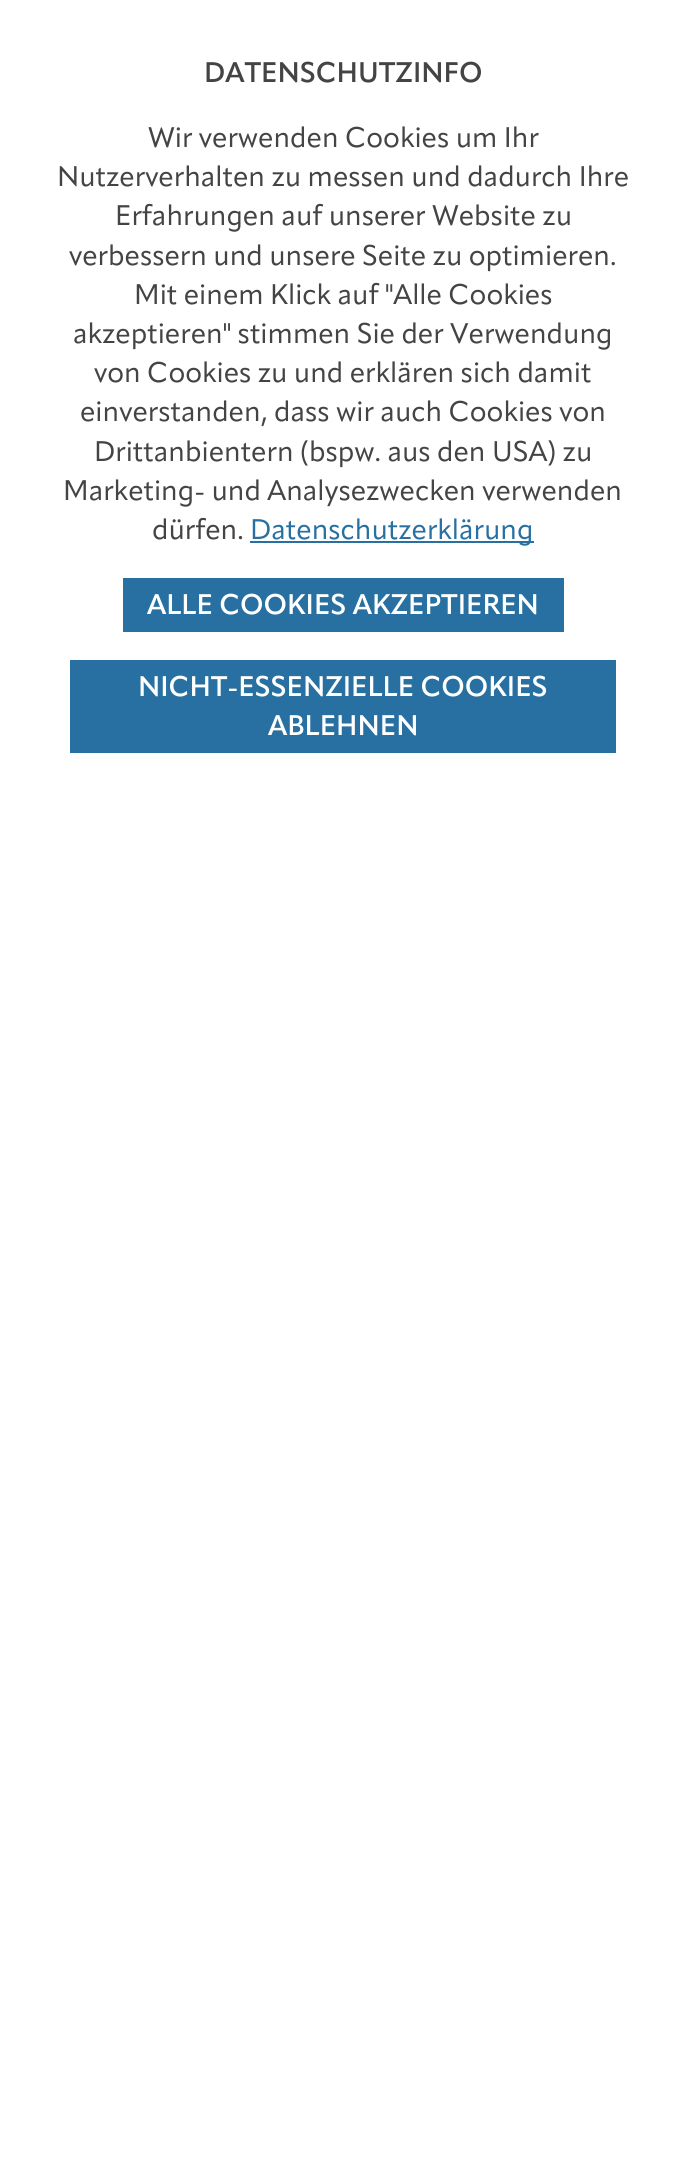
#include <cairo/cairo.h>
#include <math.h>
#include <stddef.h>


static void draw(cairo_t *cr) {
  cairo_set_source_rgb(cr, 1, 1, 1);
  cairo_paint(cr);
  cairo_set_source_rgb(cr, 39 / 255.0, 112 / 255.0, 161 / 255.0);
  cairo_rectangle(cr, 250, 541, 284, 2);
  cairo_fill(cr);
  cairo_rectangle(cr, 123, 578, 441, 54);
  cairo_fill(cr);
  cairo_rectangle(cr, 70, 660, 546, 93);
  cairo_fill(cr);
  cairo_select_font_face(cr, "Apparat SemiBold", CAIRO_FONT_SLANT_NORMAL, CAIRO_FONT_WEIGHT_NORMAL);
  cairo_set_font_size(cr, 28);
  cairo_set_source_rgb(cr, 68 / 255.0, 68 / 255.0, 68 / 255.0);
  cairo_move_to(cr, 204, 82);
  cairo_show_text(cr, "DATENSCHUTZINFO");
  cairo_select_font_face(cr, "Apparat", CAIRO_FONT_SLANT_NORMAL, CAIRO_FONT_WEIGHT_NORMAL);
  cairo_move_to(cr, 148, 147);
  cairo_show_text(cr, "Wir verwenden Cookies um Ihr");
  cairo_move_to(cr, 57, 186);
  cairo_show_text(cr, "Nutzerverhalten zu messen und dadurch Ihre");
  cairo_move_to(cr, 115, 225);
  cairo_show_text(cr, "Erfahrungen auf unserer Website zu");
  cairo_move_to(cr, 69, 265);
  cairo_show_text(cr, "verbessern und unsere Seite zu optimieren.");
  cairo_move_to(cr, 134, 304);
  cairo_show_text(cr, "Mit einem Klick auf \"Alle Cookies");
  cairo_move_to(cr, 73, 343);
  cairo_show_text(cr, "akzeptieren\" stimmen Sie der Verwendung");
  cairo_move_to(cr, 94, 382);
  cairo_show_text(cr, "von Cookies zu und erklären sich damit");
  cairo_move_to(cr, 80, 421);
  cairo_show_text(cr, "einverstanden, dass wir auch Cookies von");
  cairo_move_to(cr, 94, 461);
  cairo_show_text(cr, "Drittanbientern (bspw. aus den USA) zu");
  cairo_move_to(cr, 63, 500);
  cairo_show_text(cr, "Marketing- und Analysezwecken verwenden");
  cairo_move_to(cr, 152, 539);
  cairo_show_text(cr, "dürfen.");
  cairo_set_source_rgb(cr, 39 / 255.0, 112 / 255.0, 161 / 255.0);
  cairo_move_to(cr, 250, 539);
  cairo_show_text(cr, "Datenschutzerklärung");
  cairo_select_font_face(cr, "Apparat SemiBold", CAIRO_FONT_SLANT_NORMAL, CAIRO_FONT_WEIGHT_NORMAL);
  cairo_set_source_rgb(cr, 1, 1, 1);
  cairo_move_to(cr, 147, 614);
  cairo_show_text(cr, "ALLE COOKIES AKZEPTIEREN");
  cairo_move_to(cr, 138, 696);
  cairo_show_text(cr, "NICHT-ESSENZIELLE COOKIES");
  cairo_move_to(cr, 268, 735);
  cairo_show_text(cr, "ABLEHNEN");
}

int main(void) {
  cairo_surface_t *surface = cairo_image_surface_create(CAIRO_FORMAT_RGB24, 685, 2177);
  cairo_t *cr = cairo_create(surface);
  cairo_font_options_t *options = cairo_font_options_create();
  cairo_font_options_set_hint_metrics(options, CAIRO_HINT_METRICS_OFF);
  cairo_font_options_set_hint_style(options, CAIRO_HINT_STYLE_NONE);
  cairo_set_font_options(cr, options);
  cairo_set_miter_limit(cr, 4);
  draw(cr);
  cairo_surface_write_to_png(surface, "out.png");
  cairo_font_options_destroy(options);
  cairo_destroy(cr);
  cairo_surface_destroy(surface);
  return 0;
}
